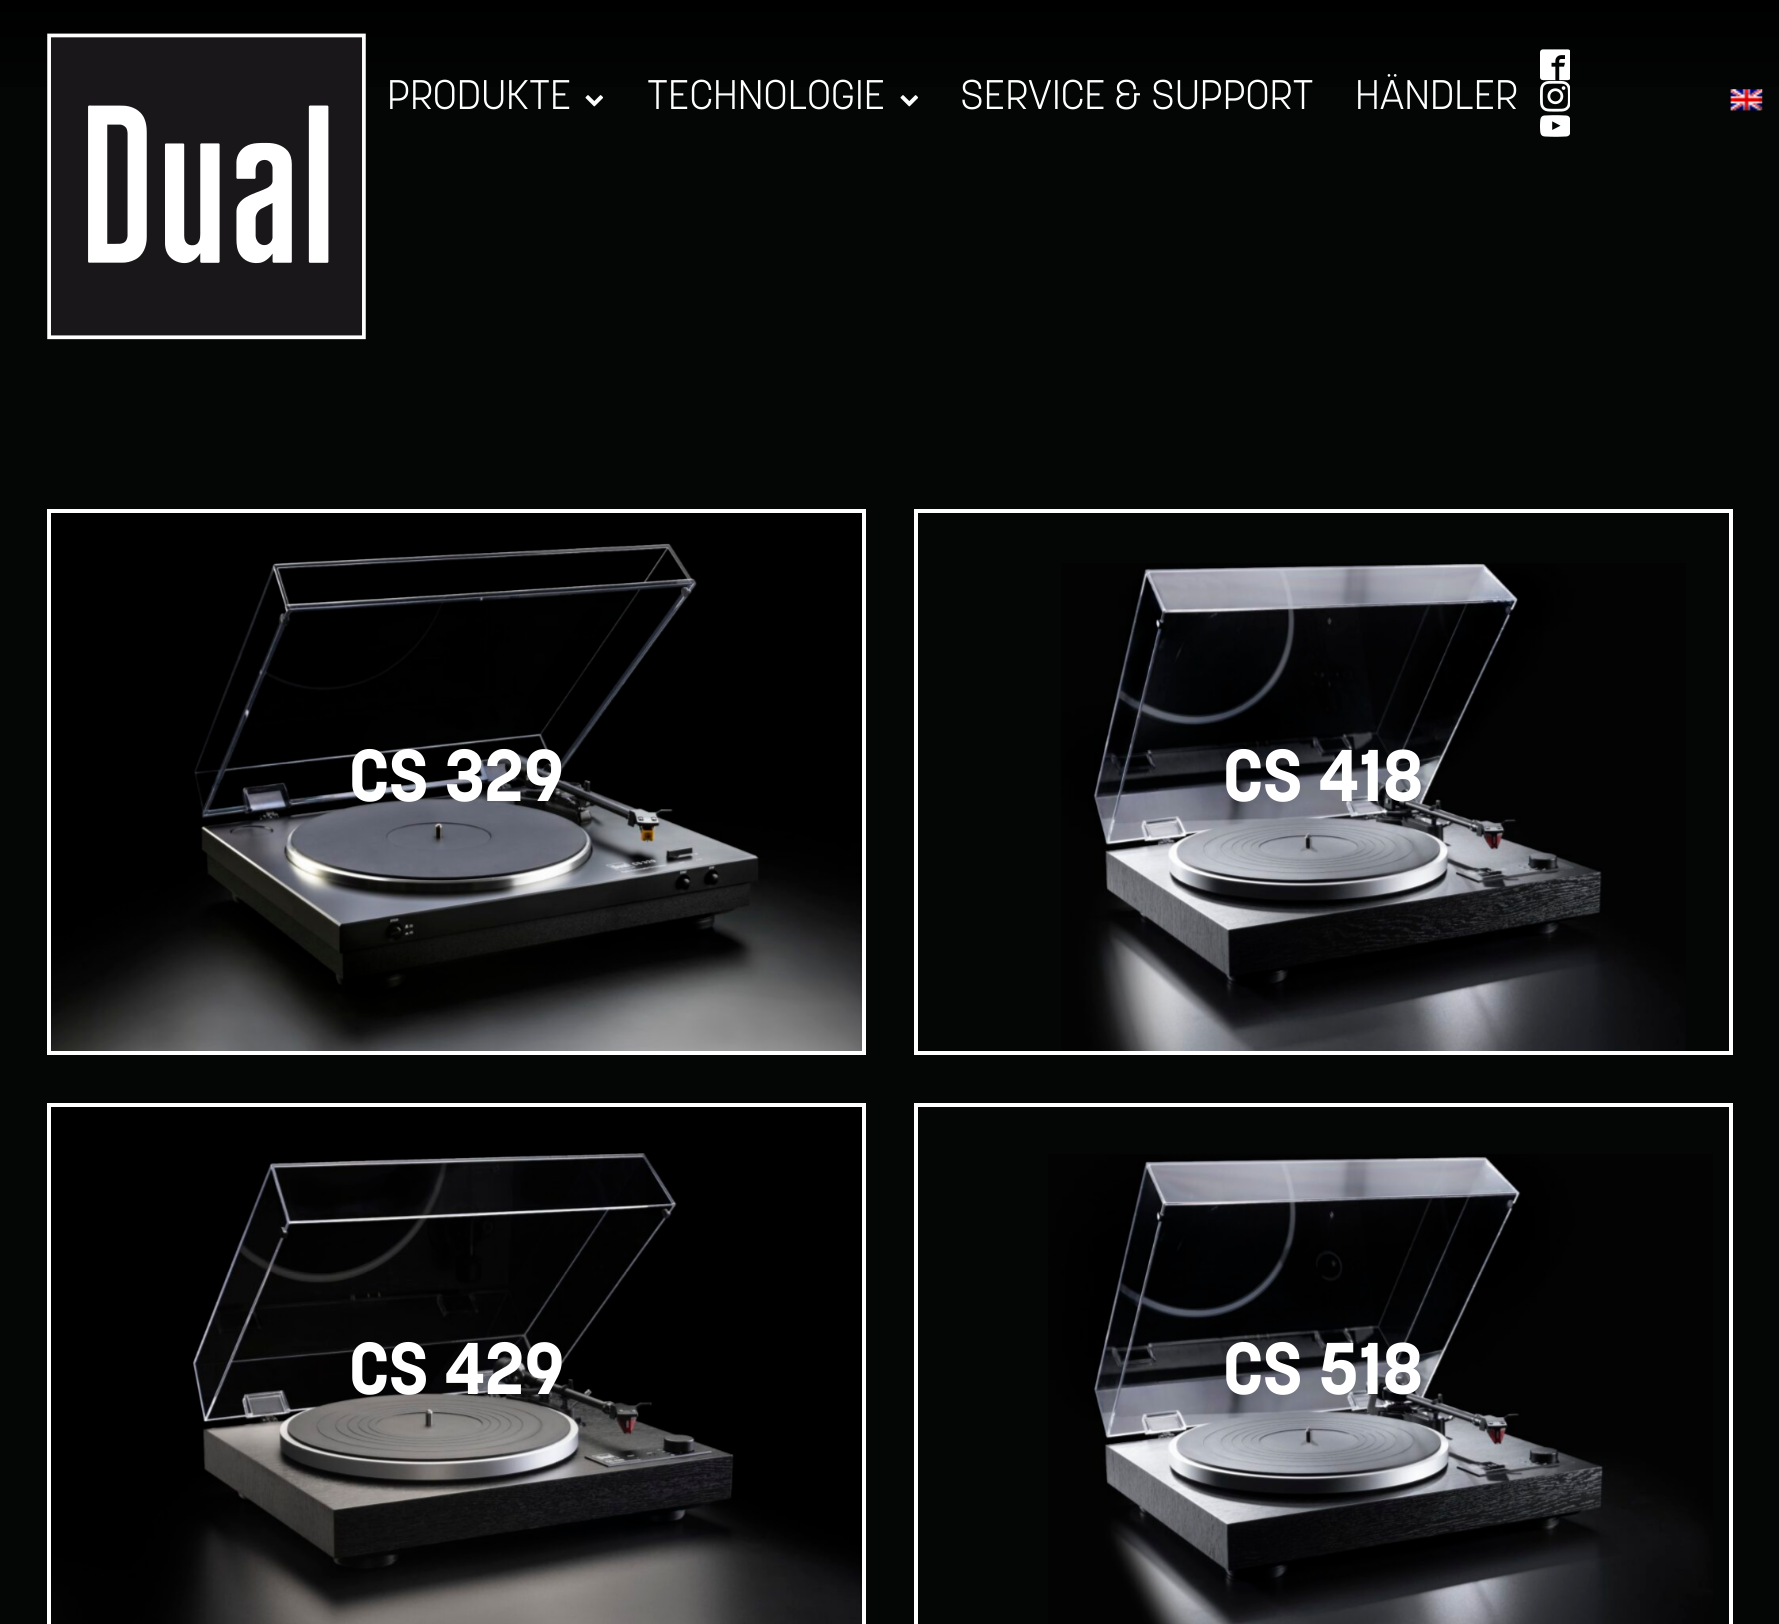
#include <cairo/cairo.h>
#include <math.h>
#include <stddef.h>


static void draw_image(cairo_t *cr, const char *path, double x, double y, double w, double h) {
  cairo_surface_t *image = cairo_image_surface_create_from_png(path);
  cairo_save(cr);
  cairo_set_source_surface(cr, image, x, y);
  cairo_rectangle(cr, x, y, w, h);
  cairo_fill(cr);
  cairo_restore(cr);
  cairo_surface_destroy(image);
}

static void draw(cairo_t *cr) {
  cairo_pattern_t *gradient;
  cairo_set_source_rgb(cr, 4 / 255.0, 6 / 255.0, 6 / 255.0);
  cairo_paint(cr);
  gradient = cairo_pattern_create_linear(890, 0, 890, 198);
  cairo_pattern_add_color_stop_rgba(gradient, 0, 0, 0, 0, 1);
  cairo_pattern_add_color_stop_rgba(gradient, 0.75, 4 / 255.0, 6 / 255.0, 6 / 255.0, 1);
  cairo_pattern_add_color_stop_rgba(gradient, 1, 4 / 255.0, 6 / 255.0, 6 / 255.0, 1);
  cairo_set_source(cr, gradient);
  cairo_pattern_destroy(gradient);
  cairo_rectangle(cr, 0, 0, 1779, 87);
  cairo_fill(cr);
  draw_image(cr, "images/1.png", 47, 33, 319, 307);
  draw_image(cr, "images/2.png", 585, 95, 19, 12);
  draw_image(cr, "images/2.png", 900, 95, 19, 12);
  draw_image(cr, "images/3.png", 1540, 49, 30, 32);
  draw_image(cr, "images/4.png", 1540, 80, 30, 32);
  draw_image(cr, "images/5.png", 1540, 115, 30, 22);
  draw_image(cr, "images/6.png", 1730, 89, 33, 22);
  draw_image(cr, "images/7.png", 51, 513, 811, 538);
  cairo_rectangle(cr, 49, 511, 815, 542);
  cairo_set_source_rgb(cr, 1, 1, 1);
  cairo_set_line_width(cr, 4);
  cairo_stroke(cr);
  draw_image(cr, "images/8.png", 1061, 563, 625, 488);
  cairo_rectangle(cr, 916, 511, 815, 542);
  cairo_stroke(cr);
  draw_image(cr, "images/9.png", 51, 1107, 811, 517);
  cairo_rectangle(cr, 49, 1105, 815, 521);
  cairo_stroke(cr);
  draw_image(cr, "images/10.png", 1048, 1154, 665, 470);
  cairo_rectangle(cr, 916, 1105, 815, 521);
  cairo_stroke(cr);
  cairo_select_font_face(cr, "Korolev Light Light", CAIRO_FONT_SLANT_NORMAL, CAIRO_FONT_WEIGHT_NORMAL);
  cairo_set_font_size(cr, 41);
  cairo_move_to(cr, 387, 109);
  cairo_show_text(cr, "PRODUKTE");
  cairo_move_to(cr, 647, 109);
  cairo_show_text(cr, "TECHNOLOGIE");
  cairo_move_to(cr, 960, 109);
  cairo_show_text(cr, "SERVICE & SUPPORT");
  cairo_move_to(cr, 1355, 109);
  cairo_show_text(cr, "HÄNDLER");
  cairo_select_font_face(cr, "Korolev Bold", CAIRO_FONT_SLANT_NORMAL, CAIRO_FONT_WEIGHT_BOLD);
  cairo_set_font_size(cr, 72.5);
  cairo_move_to(cr, 349, 801);
  cairo_show_text(cr, "CS 329");
  cairo_move_to(cr, 1223, 801);
  cairo_show_text(cr, "CS 418");
  cairo_move_to(cr, 349, 1394);
  cairo_show_text(cr, "CS 429");
  cairo_move_to(cr, 1223, 1394);
  cairo_show_text(cr, "CS 518");
}

int main(void) {
  cairo_surface_t *surface = cairo_image_surface_create(CAIRO_FORMAT_RGB24, 1779, 1624);
  cairo_t *cr = cairo_create(surface);
  cairo_font_options_t *options = cairo_font_options_create();
  cairo_font_options_set_hint_metrics(options, CAIRO_HINT_METRICS_OFF);
  cairo_font_options_set_hint_style(options, CAIRO_HINT_STYLE_NONE);
  cairo_set_font_options(cr, options);
  cairo_set_miter_limit(cr, 4);
  draw(cr);
  cairo_surface_write_to_png(surface, "out.png");
  cairo_font_options_destroy(options);
  cairo_destroy(cr);
  cairo_surface_destroy(surface);
  return 0;
}
